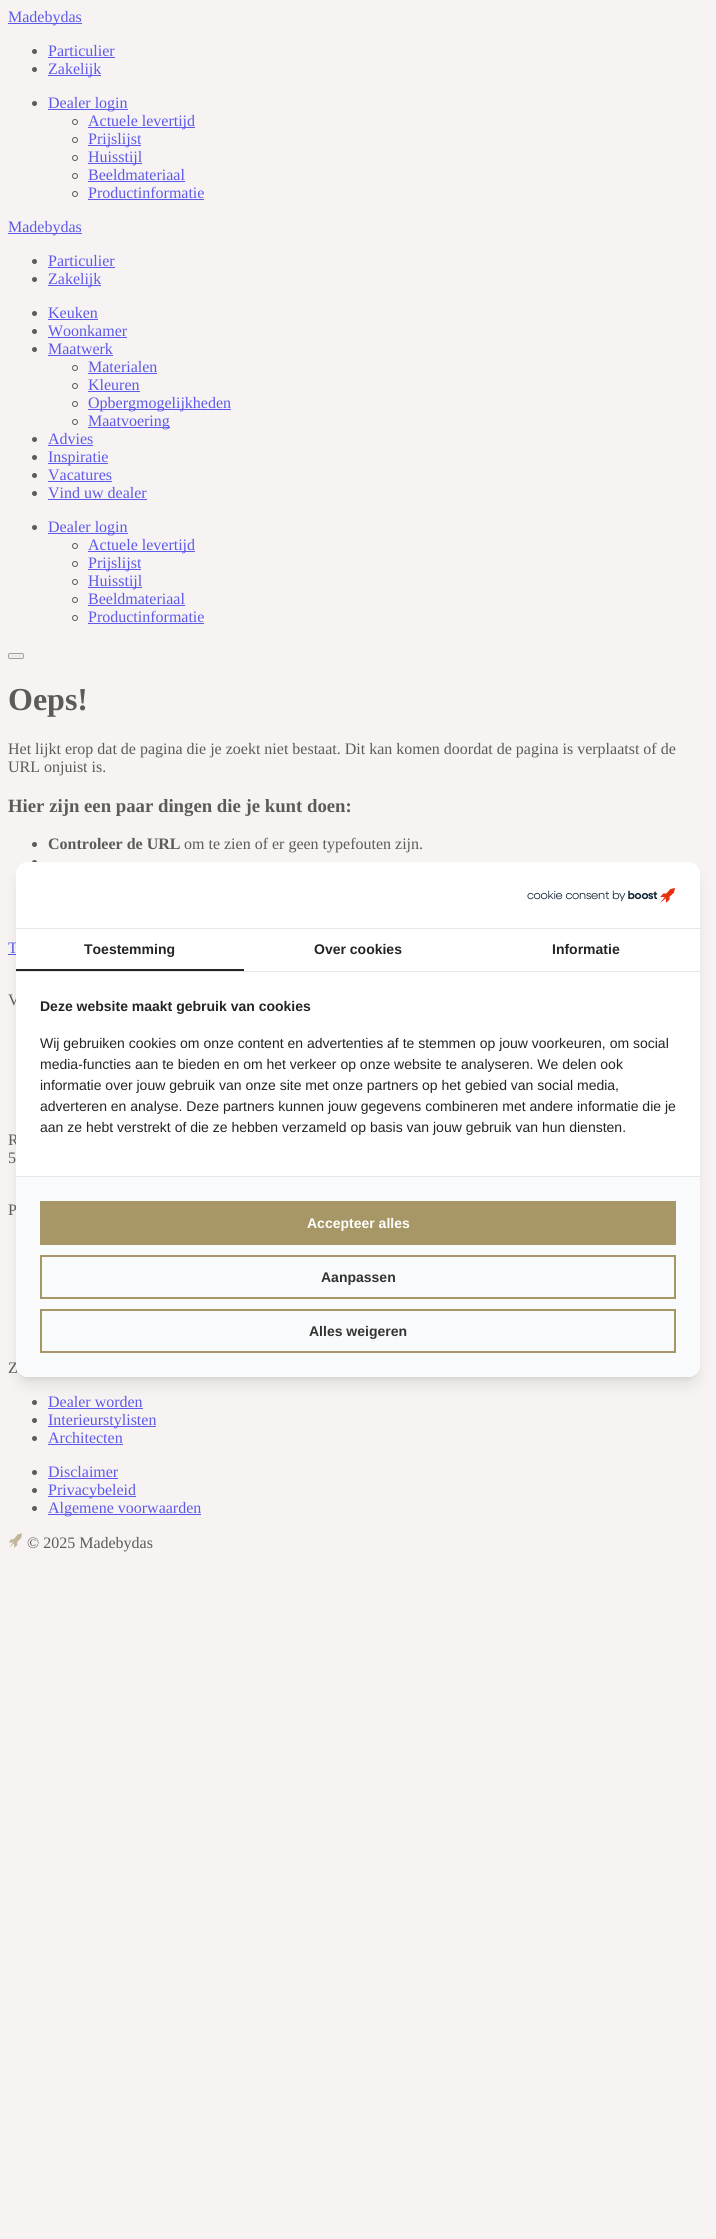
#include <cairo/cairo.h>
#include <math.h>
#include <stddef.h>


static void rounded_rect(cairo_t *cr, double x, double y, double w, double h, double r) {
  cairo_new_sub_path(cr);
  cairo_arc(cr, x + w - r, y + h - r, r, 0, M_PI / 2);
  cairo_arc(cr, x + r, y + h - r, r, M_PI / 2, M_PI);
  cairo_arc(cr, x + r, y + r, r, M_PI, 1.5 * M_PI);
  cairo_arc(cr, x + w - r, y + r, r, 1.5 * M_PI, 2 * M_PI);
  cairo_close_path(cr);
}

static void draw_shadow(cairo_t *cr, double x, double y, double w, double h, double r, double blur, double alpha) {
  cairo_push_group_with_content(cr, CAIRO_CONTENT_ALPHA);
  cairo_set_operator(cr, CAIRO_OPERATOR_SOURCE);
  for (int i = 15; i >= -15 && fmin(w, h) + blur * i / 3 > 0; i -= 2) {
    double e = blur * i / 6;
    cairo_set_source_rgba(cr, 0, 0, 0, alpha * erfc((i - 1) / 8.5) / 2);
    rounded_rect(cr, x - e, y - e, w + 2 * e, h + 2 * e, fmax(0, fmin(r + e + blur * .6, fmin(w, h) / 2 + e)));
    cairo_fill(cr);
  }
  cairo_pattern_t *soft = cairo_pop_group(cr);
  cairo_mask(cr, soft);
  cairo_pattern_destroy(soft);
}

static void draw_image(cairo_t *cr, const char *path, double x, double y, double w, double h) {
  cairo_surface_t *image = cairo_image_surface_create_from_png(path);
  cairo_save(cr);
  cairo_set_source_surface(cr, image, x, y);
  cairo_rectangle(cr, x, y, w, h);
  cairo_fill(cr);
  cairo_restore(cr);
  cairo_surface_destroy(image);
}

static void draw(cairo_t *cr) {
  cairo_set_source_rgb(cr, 247 / 255.0, 243 / 255.0, 243 / 255.0);
  cairo_paint(cr);
  cairo_set_source_rgb(cr, 94 / 255.0, 90 / 255.0, 233 / 255.0);
  cairo_rectangle(cr, 8, 23, 74, 1);
  cairo_fill(cr);
  cairo_set_source_rgb(cr, 94 / 255.0, 90 / 255.0, 90 / 255.0);
  cairo_arc(cr, 34.5, 51.5, 2.5, 0, 2 * M_PI);
  cairo_fill(cr);
  cairo_set_source_rgb(cr, 94 / 255.0, 90 / 255.0, 233 / 255.0);
  cairo_rectangle(cr, 48, 57, 67, 1);
  cairo_fill(cr);
  cairo_set_source_rgb(cr, 94 / 255.0, 90 / 255.0, 90 / 255.0);
  cairo_arc(cr, 34.5, 69.5, 2.5, 0, 2 * M_PI);
  cairo_fill(cr);
  cairo_set_source_rgb(cr, 94 / 255.0, 90 / 255.0, 233 / 255.0);
  cairo_rectangle(cr, 48, 75, 53, 1);
  cairo_fill(cr);
  cairo_set_source_rgb(cr, 94 / 255.0, 90 / 255.0, 90 / 255.0);
  cairo_arc(cr, 34.5, 103.5, 2.5, 0, 2 * M_PI);
  cairo_fill(cr);
  cairo_set_source_rgb(cr, 94 / 255.0, 90 / 255.0, 233 / 255.0);
  cairo_rectangle(cr, 48, 109, 80, 1);
  cairo_fill(cr);
  cairo_arc(cr, 75, 122, 2.5, 0, 2 * M_PI);
  cairo_set_source_rgb(cr, 94 / 255.0, 90 / 255.0, 90 / 255.0);
  cairo_set_line_width(cr, 1);
  cairo_stroke(cr);
  cairo_set_source_rgb(cr, 94 / 255.0, 90 / 255.0, 233 / 255.0);
  cairo_rectangle(cr, 88, 127, 107, 1);
  cairo_fill(cr);
  cairo_arc(cr, 75, 140, 2.5, 0, 2 * M_PI);
  cairo_set_source_rgb(cr, 94 / 255.0, 90 / 255.0, 90 / 255.0);
  cairo_stroke(cr);
  cairo_set_source_rgb(cr, 94 / 255.0, 90 / 255.0, 233 / 255.0);
  cairo_rectangle(cr, 88, 145, 53, 1);
  cairo_fill(cr);
  cairo_arc(cr, 75, 158, 2.5, 0, 2 * M_PI);
  cairo_set_source_rgb(cr, 94 / 255.0, 90 / 255.0, 90 / 255.0);
  cairo_stroke(cr);
  cairo_set_source_rgb(cr, 94 / 255.0, 90 / 255.0, 233 / 255.0);
  cairo_rectangle(cr, 88, 163, 54, 1);
  cairo_fill(cr);
  cairo_arc(cr, 75, 176, 2.5, 0, 2 * M_PI);
  cairo_set_source_rgb(cr, 94 / 255.0, 90 / 255.0, 90 / 255.0);
  cairo_stroke(cr);
  cairo_set_source_rgb(cr, 94 / 255.0, 90 / 255.0, 233 / 255.0);
  cairo_rectangle(cr, 88, 181, 97, 1);
  cairo_fill(cr);
  cairo_arc(cr, 75, 194, 2.5, 0, 2 * M_PI);
  cairo_set_source_rgb(cr, 94 / 255.0, 90 / 255.0, 90 / 255.0);
  cairo_stroke(cr);
  cairo_set_source_rgb(cr, 94 / 255.0, 90 / 255.0, 233 / 255.0);
  cairo_rectangle(cr, 88, 199, 116, 1);
  cairo_fill(cr);
  cairo_rectangle(cr, 8, 233, 74, 1);
  cairo_fill(cr);
  cairo_set_source_rgb(cr, 94 / 255.0, 90 / 255.0, 90 / 255.0);
  cairo_arc(cr, 34.5, 261.5, 2.5, 0, 2 * M_PI);
  cairo_fill(cr);
  cairo_set_source_rgb(cr, 94 / 255.0, 90 / 255.0, 233 / 255.0);
  cairo_rectangle(cr, 48, 267, 67, 1);
  cairo_fill(cr);
  cairo_set_source_rgb(cr, 94 / 255.0, 90 / 255.0, 90 / 255.0);
  cairo_arc(cr, 34.5, 279.5, 2.5, 0, 2 * M_PI);
  cairo_fill(cr);
  cairo_set_source_rgb(cr, 94 / 255.0, 90 / 255.0, 233 / 255.0);
  cairo_rectangle(cr, 48, 285, 53, 1);
  cairo_fill(cr);
  cairo_set_source_rgb(cr, 94 / 255.0, 90 / 255.0, 90 / 255.0);
  cairo_arc(cr, 34.5, 313.5, 2.5, 0, 2 * M_PI);
  cairo_fill(cr);
  cairo_set_source_rgb(cr, 94 / 255.0, 90 / 255.0, 233 / 255.0);
  cairo_rectangle(cr, 48, 319, 50, 1);
  cairo_fill(cr);
  cairo_set_source_rgb(cr, 94 / 255.0, 90 / 255.0, 90 / 255.0);
  cairo_arc(cr, 34.5, 331.5, 2.5, 0, 2 * M_PI);
  cairo_fill(cr);
  cairo_set_source_rgb(cr, 94 / 255.0, 90 / 255.0, 233 / 255.0);
  cairo_rectangle(cr, 48, 337, 79, 1);
  cairo_fill(cr);
  cairo_set_source_rgb(cr, 94 / 255.0, 90 / 255.0, 90 / 255.0);
  cairo_arc(cr, 34.5, 349.5, 2.5, 0, 2 * M_PI);
  cairo_fill(cr);
  cairo_set_source_rgb(cr, 94 / 255.0, 90 / 255.0, 233 / 255.0);
  cairo_rectangle(cr, 48, 355, 65, 1);
  cairo_fill(cr);
  cairo_arc(cr, 75, 368, 2.5, 0, 2 * M_PI);
  cairo_set_source_rgb(cr, 94 / 255.0, 90 / 255.0, 90 / 255.0);
  cairo_stroke(cr);
  cairo_set_source_rgb(cr, 94 / 255.0, 90 / 255.0, 233 / 255.0);
  cairo_rectangle(cr, 88, 373, 69, 1);
  cairo_fill(cr);
  cairo_arc(cr, 75, 386, 2.5, 0, 2 * M_PI);
  cairo_set_source_rgb(cr, 94 / 255.0, 90 / 255.0, 90 / 255.0);
  cairo_stroke(cr);
  cairo_set_source_rgb(cr, 94 / 255.0, 90 / 255.0, 233 / 255.0);
  cairo_rectangle(cr, 88, 391, 52, 1);
  cairo_fill(cr);
  cairo_arc(cr, 75, 404, 2.5, 0, 2 * M_PI);
  cairo_set_source_rgb(cr, 94 / 255.0, 90 / 255.0, 90 / 255.0);
  cairo_stroke(cr);
  cairo_set_source_rgb(cr, 94 / 255.0, 90 / 255.0, 233 / 255.0);
  cairo_rectangle(cr, 88, 409, 143, 1);
  cairo_fill(cr);
  cairo_arc(cr, 75, 422, 2.5, 0, 2 * M_PI);
  cairo_set_source_rgb(cr, 94 / 255.0, 90 / 255.0, 90 / 255.0);
  cairo_stroke(cr);
  cairo_set_source_rgb(cr, 94 / 255.0, 90 / 255.0, 233 / 255.0);
  cairo_rectangle(cr, 88, 427, 82, 1);
  cairo_fill(cr);
  cairo_set_source_rgb(cr, 94 / 255.0, 90 / 255.0, 90 / 255.0);
  cairo_arc(cr, 34.5, 439.5, 2.5, 0, 2 * M_PI);
  cairo_fill(cr);
  cairo_set_source_rgb(cr, 94 / 255.0, 90 / 255.0, 233 / 255.0);
  cairo_rectangle(cr, 48, 445, 45, 1);
  cairo_fill(cr);
  cairo_set_source_rgb(cr, 94 / 255.0, 90 / 255.0, 90 / 255.0);
  cairo_arc(cr, 34.5, 457.5, 2.5, 0, 2 * M_PI);
  cairo_fill(cr);
  cairo_set_source_rgb(cr, 94 / 255.0, 90 / 255.0, 233 / 255.0);
  cairo_rectangle(cr, 48, 463, 60, 1);
  cairo_fill(cr);
  cairo_set_source_rgb(cr, 94 / 255.0, 90 / 255.0, 90 / 255.0);
  cairo_arc(cr, 34.5, 475.5, 2.5, 0, 2 * M_PI);
  cairo_fill(cr);
  cairo_set_source_rgb(cr, 94 / 255.0, 90 / 255.0, 233 / 255.0);
  cairo_rectangle(cr, 48, 481, 64, 1);
  cairo_fill(cr);
  cairo_set_source_rgb(cr, 94 / 255.0, 90 / 255.0, 90 / 255.0);
  cairo_arc(cr, 34.5, 493.5, 2.5, 0, 2 * M_PI);
  cairo_fill(cr);
  cairo_set_source_rgb(cr, 94 / 255.0, 90 / 255.0, 233 / 255.0);
  cairo_rectangle(cr, 48, 499, 99, 1);
  cairo_fill(cr);
  cairo_set_source_rgb(cr, 94 / 255.0, 90 / 255.0, 90 / 255.0);
  cairo_arc(cr, 34.5, 527.5, 2.5, 0, 2 * M_PI);
  cairo_fill(cr);
  cairo_set_source_rgb(cr, 94 / 255.0, 90 / 255.0, 233 / 255.0);
  cairo_rectangle(cr, 48, 533, 80, 1);
  cairo_fill(cr);
  cairo_arc(cr, 75, 546, 2.5, 0, 2 * M_PI);
  cairo_set_source_rgb(cr, 94 / 255.0, 90 / 255.0, 90 / 255.0);
  cairo_stroke(cr);
  cairo_set_source_rgb(cr, 94 / 255.0, 90 / 255.0, 233 / 255.0);
  cairo_rectangle(cr, 88, 551, 107, 1);
  cairo_fill(cr);
  cairo_arc(cr, 75, 564, 2.5, 0, 2 * M_PI);
  cairo_set_source_rgb(cr, 94 / 255.0, 90 / 255.0, 90 / 255.0);
  cairo_stroke(cr);
  cairo_set_source_rgb(cr, 94 / 255.0, 90 / 255.0, 233 / 255.0);
  cairo_rectangle(cr, 88, 569, 53, 1);
  cairo_fill(cr);
  cairo_arc(cr, 75, 582, 2.5, 0, 2 * M_PI);
  cairo_set_source_rgb(cr, 94 / 255.0, 90 / 255.0, 90 / 255.0);
  cairo_stroke(cr);
  cairo_set_source_rgb(cr, 94 / 255.0, 90 / 255.0, 233 / 255.0);
  cairo_rectangle(cr, 88, 587, 54, 1);
  cairo_fill(cr);
  cairo_arc(cr, 75, 600, 2.5, 0, 2 * M_PI);
  cairo_set_source_rgb(cr, 94 / 255.0, 90 / 255.0, 90 / 255.0);
  cairo_stroke(cr);
  cairo_set_source_rgb(cr, 94 / 255.0, 90 / 255.0, 233 / 255.0);
  cairo_rectangle(cr, 88, 605, 97, 1);
  cairo_fill(cr);
  cairo_arc(cr, 75, 618, 2.5, 0, 2 * M_PI);
  cairo_set_source_rgb(cr, 94 / 255.0, 90 / 255.0, 90 / 255.0);
  cairo_stroke(cr);
  cairo_set_source_rgb(cr, 94 / 255.0, 90 / 255.0, 233 / 255.0);
  cairo_rectangle(cr, 88, 623, 116, 1);
  cairo_fill(cr);
  cairo_set_source_rgb(cr, 237 / 255.0, 234 / 255.0, 234 / 255.0);
  rounded_rect(cr, 8.5, 653.5, 15, 5, 1.5);
  cairo_fill_preserve(cr);
  cairo_set_source_rgb(cr, 165 / 255.0, 161 / 255.0, 161 / 255.0);
  cairo_stroke(cr);
  cairo_set_source_rgb(cr, 94 / 255.0, 90 / 255.0, 90 / 255.0);
  cairo_arc(cr, 34.5, 844.5, 2.5, 0, 2 * M_PI);
  cairo_fill(cr);
  cairo_arc(cr, 34.5, 862.5, 2.5, 0, 2 * M_PI);
  cairo_fill(cr);
  cairo_set_source_rgb(cr, 94 / 255.0, 90 / 255.0, 233 / 255.0);
  cairo_rectangle(cr, 8, 954, 8, 1);
  cairo_fill(cr);
  cairo_set_source_rgb(cr, 0, 0, 0);
  draw_shadow(cr, 20, 870, 676, 507, 8, 3, 0.1);
  cairo_set_source_rgb(cr, 94 / 255.0, 90 / 255.0, 90 / 255.0);
  cairo_arc(cr, 34.5, 1402.5, 2.5, 0, 2 * M_PI);
  cairo_fill(cr);
  cairo_set_source_rgb(cr, 0, 0, 0);
  draw_shadow(cr, 19, 875, 678, 509, 9, 7.5, 0.1);
  cairo_set_source_rgb(cr, 94 / 255.0, 90 / 255.0, 233 / 255.0);
  cairo_rectangle(cr, 48, 1408, 95, 1);
  cairo_fill(cr);
  cairo_set_source_rgb(cr, 94 / 255.0, 90 / 255.0, 90 / 255.0);
  cairo_arc(cr, 34.5, 1420.5, 2.5, 0, 2 * M_PI);
  cairo_fill(cr);
  cairo_set_source_rgb(cr, 94 / 255.0, 90 / 255.0, 233 / 255.0);
  cairo_rectangle(cr, 48, 1426, 108, 1);
  cairo_fill(cr);
  cairo_set_source_rgb(cr, 94 / 255.0, 90 / 255.0, 90 / 255.0);
  cairo_arc(cr, 34.5, 1438.5, 2.5, 0, 2 * M_PI);
  cairo_fill(cr);
  cairo_set_source_rgb(cr, 94 / 255.0, 90 / 255.0, 233 / 255.0);
  cairo_rectangle(cr, 48, 1444, 75, 1);
  cairo_fill(cr);
  cairo_set_source_rgb(cr, 94 / 255.0, 90 / 255.0, 90 / 255.0);
  cairo_arc(cr, 34.5, 1472.5, 2.5, 0, 2 * M_PI);
  cairo_fill(cr);
  cairo_set_source_rgb(cr, 94 / 255.0, 90 / 255.0, 233 / 255.0);
  cairo_rectangle(cr, 48, 1478, 70, 1);
  cairo_fill(cr);
  cairo_set_source_rgb(cr, 94 / 255.0, 90 / 255.0, 90 / 255.0);
  cairo_arc(cr, 34.5, 1490.5, 2.5, 0, 2 * M_PI);
  cairo_fill(cr);
  cairo_set_source_rgb(cr, 94 / 255.0, 90 / 255.0, 233 / 255.0);
  cairo_rectangle(cr, 48, 1496, 88, 1);
  cairo_fill(cr);
  cairo_set_source_rgb(cr, 94 / 255.0, 90 / 255.0, 90 / 255.0);
  cairo_arc(cr, 34.5, 1508.5, 2.5, 0, 2 * M_PI);
  cairo_fill(cr);
  cairo_set_source_rgb(cr, 94 / 255.0, 90 / 255.0, 233 / 255.0);
  cairo_rectangle(cr, 48, 1514, 153, 1);
  cairo_fill(cr);
  draw_image(cr, "images/2.png", 8, 1533, 14, 15);
  cairo_select_font_face(cr, "Liberation Serif", CAIRO_FONT_SLANT_NORMAL, CAIRO_FONT_WEIGHT_NORMAL);
  cairo_set_font_size(cr, 16);
  cairo_move_to(cr, 8, 22);
  cairo_show_text(cr, "Madebydas");
  cairo_move_to(cr, 48, 56);
  cairo_show_text(cr, "Particulier");
  cairo_move_to(cr, 48, 74);
  cairo_show_text(cr, "Zakelijk");
  cairo_move_to(cr, 48, 108);
  cairo_show_text(cr, "Dealer login");
  cairo_move_to(cr, 88, 126);
  cairo_show_text(cr, "Actuele levertijd");
  cairo_move_to(cr, 88, 144);
  cairo_show_text(cr, "Prijslijst");
  cairo_move_to(cr, 88, 162);
  cairo_show_text(cr, "Huisstijl");
  cairo_move_to(cr, 88, 180);
  cairo_show_text(cr, "Beeldmateriaal");
  cairo_move_to(cr, 88, 198);
  cairo_show_text(cr, "Productinformatie");
  cairo_move_to(cr, 8, 232);
  cairo_show_text(cr, "Madebydas");
  cairo_move_to(cr, 48, 266);
  cairo_show_text(cr, "Particulier");
  cairo_move_to(cr, 48, 284);
  cairo_show_text(cr, "Zakelijk");
  cairo_move_to(cr, 48, 318);
  cairo_show_text(cr, "Keuken");
  cairo_move_to(cr, 48, 336);
  cairo_show_text(cr, "Woonkamer");
  cairo_move_to(cr, 48, 354);
  cairo_show_text(cr, "Maatwerk");
  cairo_move_to(cr, 88, 372);
  cairo_show_text(cr, "Materialen");
  cairo_move_to(cr, 88, 390);
  cairo_show_text(cr, "Kleuren");
  cairo_move_to(cr, 88, 408);
  cairo_show_text(cr, "Opbergmogelijkheden");
  cairo_move_to(cr, 88, 426);
  cairo_show_text(cr, "Maatvoering");
  cairo_move_to(cr, 48, 444);
  cairo_show_text(cr, "Advies");
  cairo_move_to(cr, 48, 462);
  cairo_show_text(cr, "Inspiratie");
  cairo_move_to(cr, 48, 480);
  cairo_show_text(cr, "Vacatures");
  cairo_move_to(cr, 48, 498);
  cairo_show_text(cr, "Vind uw dealer");
  cairo_move_to(cr, 48, 532);
  cairo_show_text(cr, "Dealer login");
  cairo_move_to(cr, 88, 550);
  cairo_show_text(cr, "Actuele levertijd");
  cairo_move_to(cr, 88, 568);
  cairo_show_text(cr, "Prijslijst");
  cairo_move_to(cr, 88, 586);
  cairo_show_text(cr, "Huisstijl");
  cairo_move_to(cr, 88, 604);
  cairo_show_text(cr, "Beeldmateriaal");
  cairo_move_to(cr, 88, 622);
  cairo_show_text(cr, "Productinformatie");
  cairo_select_font_face(cr, "Liberation Serif", CAIRO_FONT_SLANT_NORMAL, CAIRO_FONT_WEIGHT_BOLD);
  cairo_set_font_size(cr, 32);
  cairo_set_source_rgb(cr, 94 / 255.0, 90 / 255.0, 90 / 255.0);
  cairo_move_to(cr, 8, 710);
  cairo_show_text(cr, "Oeps!");
  cairo_select_font_face(cr, "Liberation Serif", CAIRO_FONT_SLANT_NORMAL, CAIRO_FONT_WEIGHT_NORMAL);
  cairo_set_font_size(cr, 16);
  cairo_move_to(cr, 8, 754);
  cairo_show_text(cr, "Het lijkt erop dat de pagina die je zoekt niet bestaat. Dit kan komen doordat de pagina is verplaatst of de");
  cairo_move_to(cr, 8, 772);
  cairo_show_text(cr, "URL onjuist is.");
  cairo_select_font_face(cr, "Liberation Serif", CAIRO_FONT_SLANT_NORMAL, CAIRO_FONT_WEIGHT_BOLD);
  cairo_set_font_size(cr, 18.75);
  cairo_move_to(cr, 8, 812);
  cairo_show_text(cr, "Hier zijn een paar dingen die je kunt doen:");
  cairo_set_font_size(cr, 16);
  cairo_move_to(cr, 48, 849);
  cairo_show_text(cr, "Controleer de URL");
  cairo_select_font_face(cr, "Liberation Serif", CAIRO_FONT_SLANT_NORMAL, CAIRO_FONT_WEIGHT_NORMAL);
  cairo_move_to(cr, 184, 849);
  cairo_show_text(cr, "om te zien of er geen typefouten zijn.");
  cairo_set_source_rgb(cr, 94 / 255.0, 90 / 255.0, 233 / 255.0);
  cairo_move_to(cr, 8, 953);
  cairo_show_text(cr, "T");
  cairo_set_source_rgb(cr, 94 / 255.0, 90 / 255.0, 90 / 255.0);
  cairo_move_to(cr, 8, 1005);
  cairo_show_text(cr, "V");
  cairo_move_to(cr, 8, 1145);
  cairo_show_text(cr, "R");
  cairo_move_to(cr, 8, 1163);
  cairo_show_text(cr, "5");
  cairo_move_to(cr, 8, 1215);
  cairo_show_text(cr, "P");
  cairo_move_to(cr, 8, 1373);
  cairo_show_text(cr, "Z");
  cairo_set_source_rgb(cr, 1, 1, 1);
  rounded_rect(cr, 16, 862, 684, 515, 12);
  cairo_fill(cr);
  cairo_save(cr);
  rounded_rect(cr, 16, 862, 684, 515, 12);
  cairo_clip(cr);
  cairo_set_source_rgb(cr, 1, 1, 1);
  draw_shadow(cr, 8, 1148, 700, 217, 0, 10, 1);
  cairo_restore(cr);
  cairo_set_source_rgb(cr, 249 / 255.0, 250 / 255.0, 251 / 255.0);
  cairo_new_path(cr);
  cairo_move_to(cr, 16, 1176);
  cairo_line_to(cr, 700, 1176);
  cairo_line_to(cr, 700, 1365);
  cairo_curve_to(cr, 700, 1371.5, 694.5, 1377, 688, 1377);
  cairo_line_to(cr, 28, 1377);
  cairo_curve_to(cr, 21.5, 1377, 16, 1371.5, 16, 1365);
  cairo_close_path(cr);
  cairo_fill(cr);
  cairo_set_source_rgb(cr, 167 / 255.0, 151 / 255.0, 102 / 255.0);
  cairo_rectangle(cr, 40, 1201, 636, 44);
  cairo_fill(cr);
  cairo_select_font_face(cr, "Liberation Sans", CAIRO_FONT_SLANT_NORMAL, CAIRO_FONT_WEIGHT_BOLD);
  cairo_set_font_size(cr, 14);
  cairo_set_source_rgb(cr, 1, 1, 1);
  cairo_move_to(cr, 307, 1228);
  cairo_show_text(cr, "Accepteer alles");
  cairo_rectangle(cr, 41, 1256, 634, 42);
  cairo_set_source_rgb(cr, 167 / 255.0, 151 / 255.0, 102 / 255.0);
  cairo_set_line_width(cr, 2);
  cairo_stroke(cr);
  cairo_set_source_rgb(cr, 51 / 255.0, 51 / 255.0, 51 / 255.0);
  cairo_move_to(cr, 321, 1282);
  cairo_show_text(cr, "Aanpassen");
  cairo_rectangle(cr, 41, 1310, 634, 42);
  cairo_set_source_rgb(cr, 167 / 255.0, 151 / 255.0, 102 / 255.0);
  cairo_stroke(cr);
  cairo_set_source_rgb(cr, 51 / 255.0, 51 / 255.0, 51 / 255.0);
  cairo_move_to(cr, 309, 1336);
  cairo_show_text(cr, "Alles weigeren");
  cairo_set_source_rgb(cr, 229 / 255.0, 231 / 255.0, 235 / 255.0);
  cairo_rectangle(cr, 16, 1176, 684, 1);
  cairo_fill(cr);
  cairo_select_font_face(cr, "Liberation Sans", CAIRO_FONT_SLANT_NORMAL, CAIRO_FONT_WEIGHT_NORMAL);
  cairo_set_source_rgb(cr, 36 / 255.0, 36 / 255.0, 36 / 255.0);
  cairo_move_to(cr, 40, 1132);
  cairo_show_text(cr, "aan ze hebt verstrekt of die ze hebben verzameld op basis van jouw gebruik van hun diensten.");
  cairo_move_to(cr, 40, 1111);
  cairo_show_text(cr, "adverteren en analyse. Deze partners kunnen jouw gegevens combineren met andere informatie die je");
  cairo_move_to(cr, 40, 1090);
  cairo_show_text(cr, "informatie over jouw gebruik van onze site met onze partners op het gebied van social media,");
  cairo_move_to(cr, 40, 1069);
  cairo_show_text(cr, "media-functies aan te bieden en om het verkeer op onze website te analyseren. We delen ook");
  cairo_move_to(cr, 40, 1048);
  cairo_show_text(cr, "Wij gebruiken cookies om onze content en advertenties af te stemmen op jouw voorkeuren, om social");
  cairo_select_font_face(cr, "Liberation Sans", CAIRO_FONT_SLANT_NORMAL, CAIRO_FONT_WEIGHT_BOLD);
  cairo_move_to(cr, 40, 1011);
  cairo_show_text(cr, "Deze website maakt gebruik van cookies");
  cairo_move_to(cr, 552, 954);
  cairo_show_text(cr, "Informatie");
  cairo_move_to(cr, 314, 954);
  cairo_show_text(cr, "Over cookies");
  cairo_move_to(cr, 84, 954);
  cairo_show_text(cr, "Toestemming");
  cairo_rectangle(cr, 16, 969, 228, 2);
  cairo_fill(cr);
  cairo_set_source_rgb(cr, 229 / 255.0, 231 / 255.0, 235 / 255.0);
  cairo_rectangle(cr, 16, 971, 684, 1);
  cairo_fill(cr);
  draw_image(cr, "images/1.png", 527, 888, 148, 15);
  cairo_rectangle(cr, 16, 928, 684, 1);
  cairo_fill(cr);
  cairo_select_font_face(cr, "Liberation Serif", CAIRO_FONT_SLANT_NORMAL, CAIRO_FONT_WEIGHT_NORMAL);
  cairo_set_font_size(cr, 16);
  cairo_set_source_rgb(cr, 94 / 255.0, 90 / 255.0, 233 / 255.0);
  cairo_move_to(cr, 48, 1407);
  cairo_show_text(cr, "Dealer worden");
  cairo_move_to(cr, 48, 1425);
  cairo_show_text(cr, "Interieurstylisten");
  cairo_move_to(cr, 48, 1443);
  cairo_show_text(cr, "Architecten");
  cairo_move_to(cr, 48, 1477);
  cairo_show_text(cr, "Disclaimer");
  cairo_move_to(cr, 48, 1495);
  cairo_show_text(cr, "Privacybeleid");
  cairo_move_to(cr, 48, 1513);
  cairo_show_text(cr, "Algemene voorwaarden");
  cairo_set_source_rgb(cr, 94 / 255.0, 90 / 255.0, 90 / 255.0);
  cairo_move_to(cr, 27, 1548);
  cairo_show_text(cr, "© 2025 Madebydas");
}

int main(void) {
  cairo_surface_t *surface = cairo_image_surface_create(CAIRO_FORMAT_RGB24, 716, 2239);
  cairo_t *cr = cairo_create(surface);
  cairo_font_options_t *options = cairo_font_options_create();
  cairo_font_options_set_hint_metrics(options, CAIRO_HINT_METRICS_OFF);
  cairo_font_options_set_hint_style(options, CAIRO_HINT_STYLE_NONE);
  cairo_set_font_options(cr, options);
  cairo_set_miter_limit(cr, 4);
  draw(cr);
  cairo_surface_write_to_png(surface, "out.png");
  cairo_font_options_destroy(options);
  cairo_destroy(cr);
  cairo_surface_destroy(surface);
  return 0;
}
